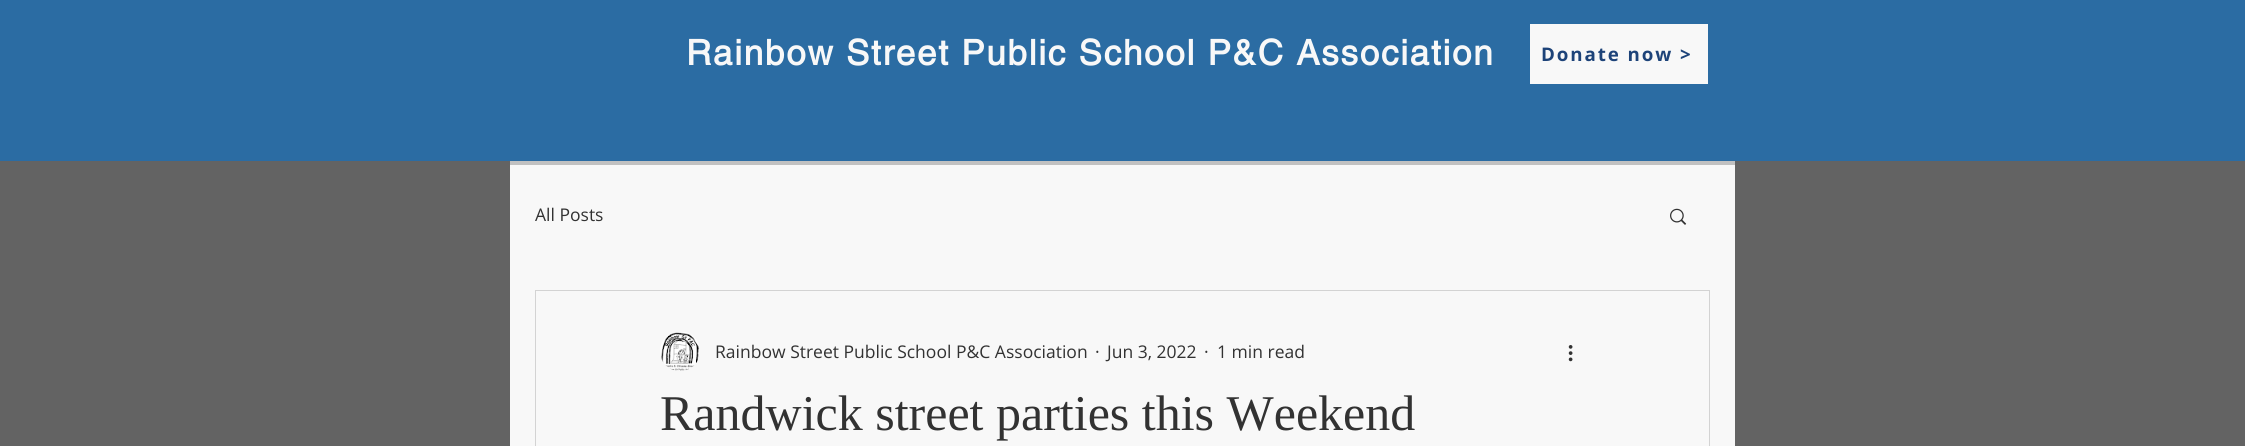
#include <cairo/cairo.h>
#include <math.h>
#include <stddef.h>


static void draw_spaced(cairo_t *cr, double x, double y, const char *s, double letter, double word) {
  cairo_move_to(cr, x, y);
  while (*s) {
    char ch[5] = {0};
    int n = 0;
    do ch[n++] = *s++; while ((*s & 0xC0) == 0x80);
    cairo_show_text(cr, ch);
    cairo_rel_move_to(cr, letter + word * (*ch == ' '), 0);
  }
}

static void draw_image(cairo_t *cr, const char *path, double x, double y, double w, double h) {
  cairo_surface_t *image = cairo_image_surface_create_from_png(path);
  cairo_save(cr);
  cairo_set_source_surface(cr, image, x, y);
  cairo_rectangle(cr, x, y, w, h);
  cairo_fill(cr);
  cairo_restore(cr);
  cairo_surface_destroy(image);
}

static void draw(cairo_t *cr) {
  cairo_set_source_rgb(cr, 99 / 255.0, 99 / 255.0, 99 / 255.0);
  cairo_paint(cr);
  cairo_set_source_rgb(cr, 43 / 255.0, 108 / 255.0, 163 / 255.0);
  cairo_rectangle(cr, 0, 0, 2245, 161);
  cairo_fill(cr);
  cairo_set_source_rgb(cr, 248 / 255.0, 248 / 255.0, 248 / 255.0);
  cairo_rectangle(cr, 1530, 24, 178, 60);
  cairo_fill(cr);
  cairo_set_source_rgb(cr, 193 / 255.0, 193 / 255.0, 193 / 255.0);
  cairo_rectangle(cr, 510, 161, 1225, 4);
  cairo_fill(cr);
  cairo_set_source_rgb(cr, 248 / 255.0, 248 / 255.0, 248 / 255.0);
  cairo_rectangle(cr, 510, 165, 1225, 281);
  cairo_fill(cr);
  draw_image(cr, "images/1.png", 1670, 208, 17, 17);
  cairo_rectangle(cr, 535.5, 290.5, 1174, 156);
  cairo_set_source_rgb(cr, 211 / 255.0, 211 / 255.0, 211 / 255.0);
  cairo_set_line_width(cr, 1);
  cairo_stroke(cr);
  draw_image(cr, "images/2.png", 660, 332, 40, 39);
  draw_image(cr, "images/3.png", 1568, 345, 5, 17);
  cairo_select_font_face(cr, "helvetica", CAIRO_FONT_SLANT_NORMAL, CAIRO_FONT_WEIGHT_BOLD);
  cairo_set_font_size(cr, 35);
  cairo_set_source_rgb(cr, 248 / 255.0, 248 / 255.0, 248 / 255.0);
  draw_spaced(cr, 686, 65, "Rainbow Street Public School P&C Association", 1.75, 0);
  cairo_select_font_face(cr, "Open Sans", CAIRO_FONT_SLANT_NORMAL, CAIRO_FONT_WEIGHT_BOLD);
  cairo_set_font_size(cr, 18.75);
  cairo_set_source_rgb(cr, 29 / 255.0, 67 / 255.0, 121 / 255.0);
  draw_spaced(cr, 1541, 61, "Donate now >", 1.9, 0);
  cairo_select_font_face(cr, "Open Sans", CAIRO_FONT_SLANT_NORMAL, CAIRO_FONT_WEIGHT_NORMAL);
  cairo_set_font_size(cr, 17.5);
  cairo_set_source_rgb(cr, 50 / 255.0, 50 / 255.0, 50 / 255.0);
  cairo_move_to(cr, 535, 221);
  cairo_show_text(cr, "All Posts");
  cairo_move_to(cr, 715, 358);
  cairo_show_text(cr, "Rainbow Street Public School P&C Association");
  cairo_move_to(cr, 1095, 358);
  cairo_show_text(cr, "·");
  cairo_move_to(cr, 1107, 358);
  cairo_show_text(cr, "Jun 3, 2022");
  cairo_move_to(cr, 1204, 358);
  cairo_show_text(cr, "·");
  cairo_move_to(cr, 1217, 358);
  cairo_show_text(cr, "1 min read");
  cairo_select_font_face(cr, "Liberation Serif", CAIRO_FONT_SLANT_NORMAL, CAIRO_FONT_WEIGHT_NORMAL);
  cairo_set_font_size(cr, 50);
  cairo_move_to(cr, 660, 430);
  cairo_show_text(cr, "Randwick street parties this Weekend");
}

int main(void) {
  cairo_surface_t *surface = cairo_image_surface_create(CAIRO_FORMAT_RGB24, 2245, 446);
  cairo_t *cr = cairo_create(surface);
  cairo_font_options_t *options = cairo_font_options_create();
  cairo_font_options_set_hint_metrics(options, CAIRO_HINT_METRICS_OFF);
  cairo_font_options_set_hint_style(options, CAIRO_HINT_STYLE_NONE);
  cairo_set_font_options(cr, options);
  cairo_set_miter_limit(cr, 4);
  draw(cr);
  cairo_surface_write_to_png(surface, "out.png");
  cairo_font_options_destroy(options);
  cairo_destroy(cr);
  cairo_surface_destroy(surface);
  return 0;
}
